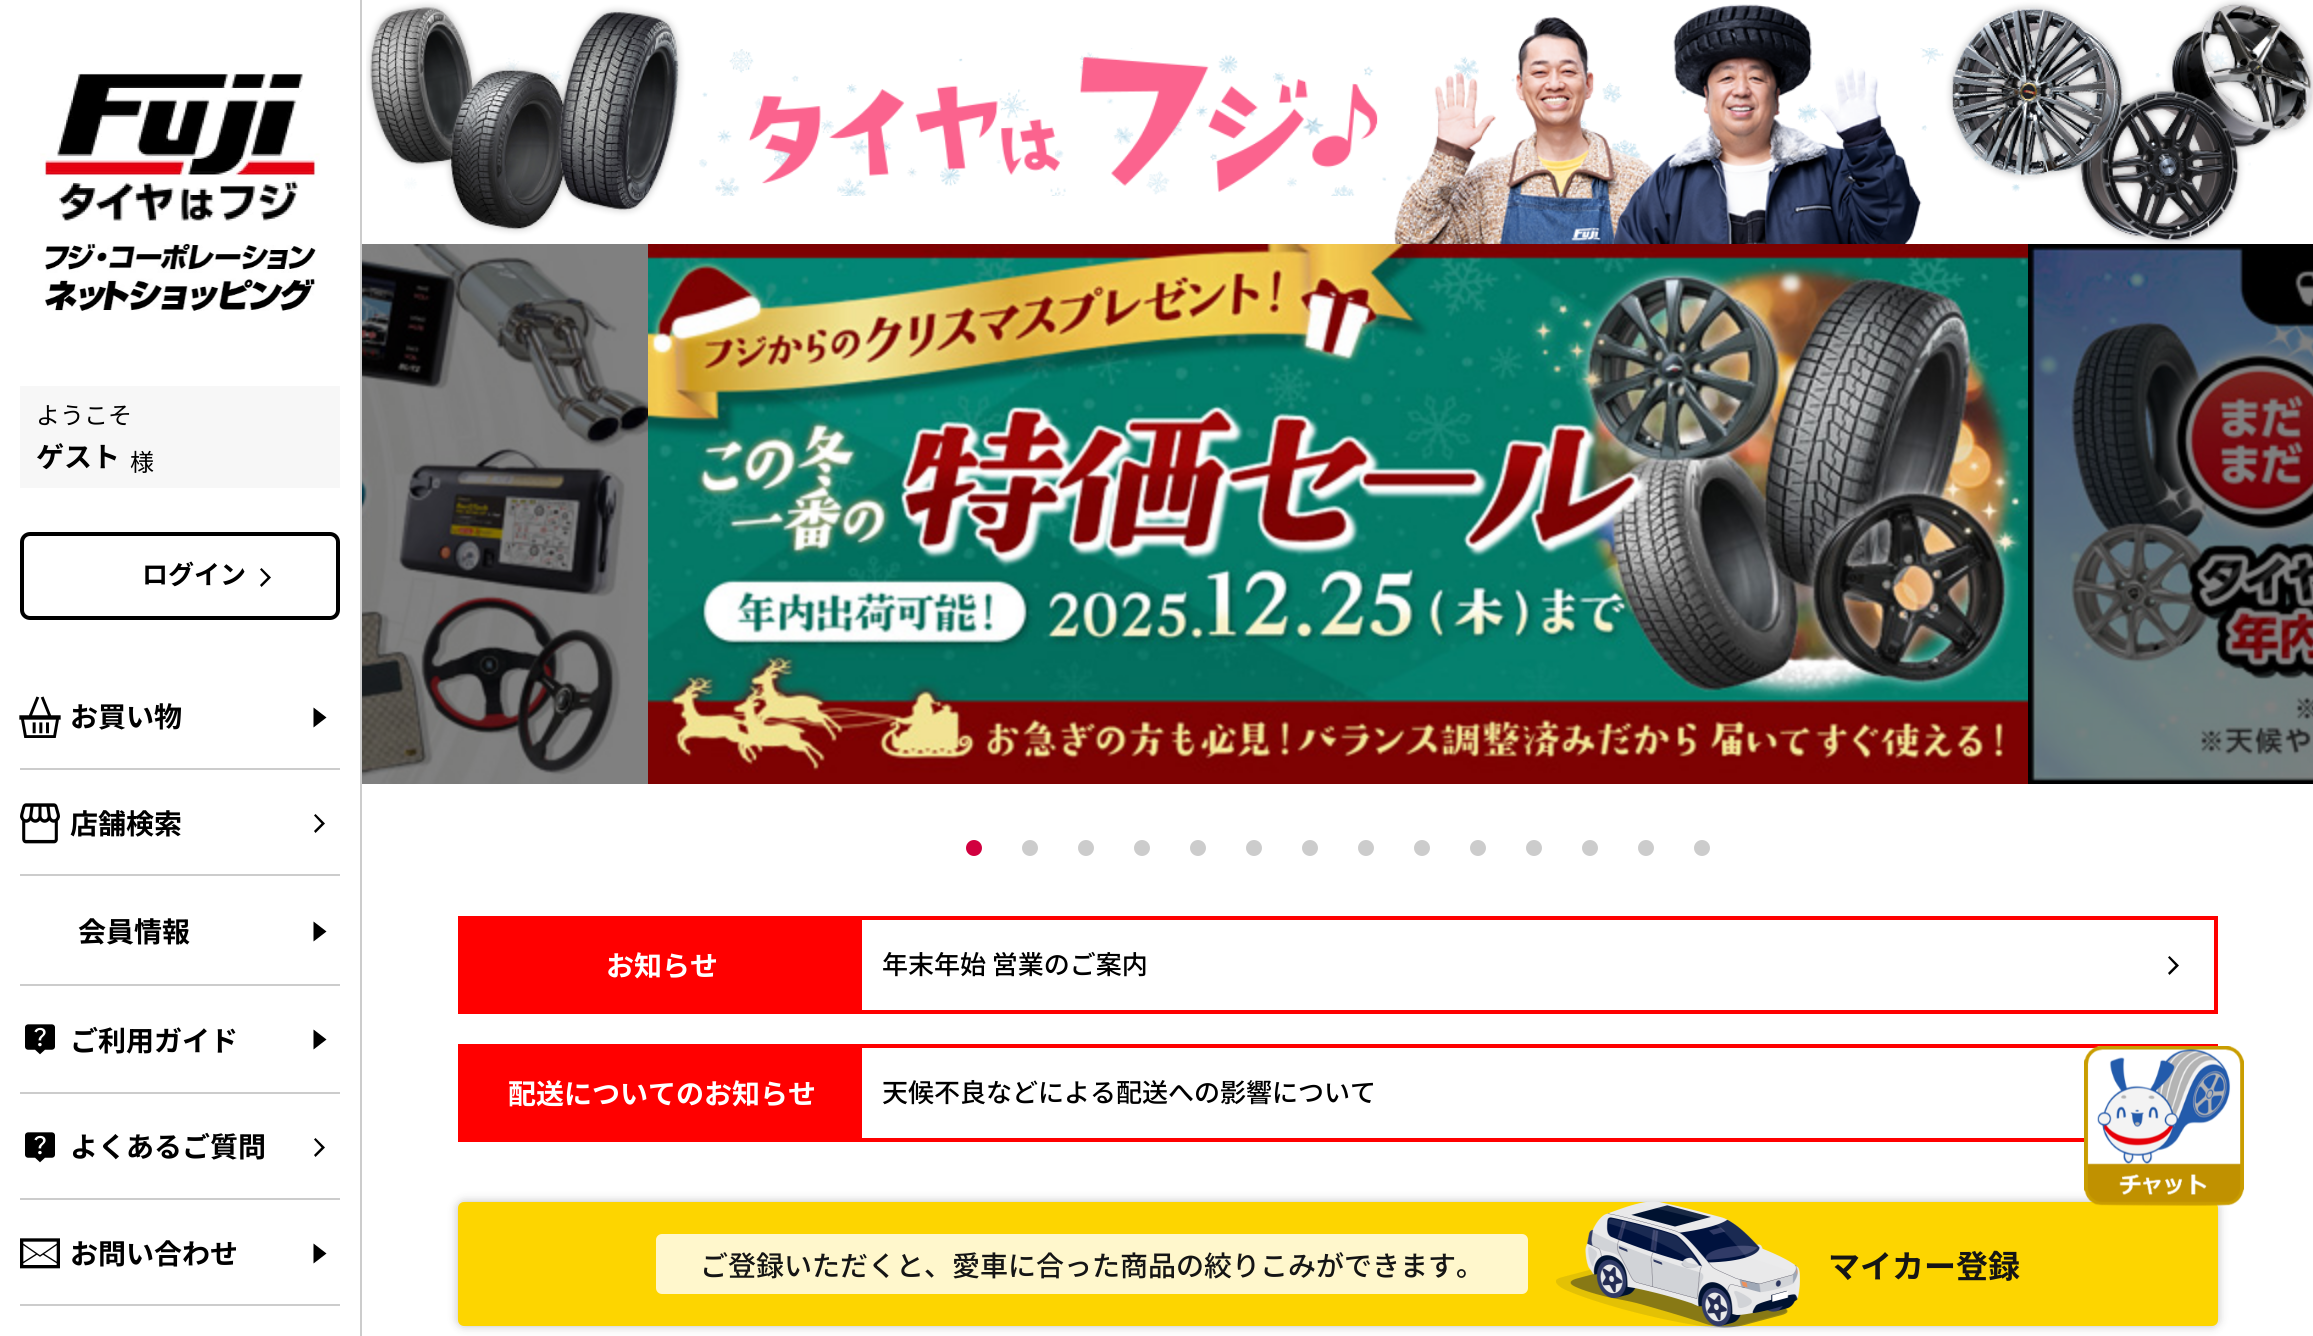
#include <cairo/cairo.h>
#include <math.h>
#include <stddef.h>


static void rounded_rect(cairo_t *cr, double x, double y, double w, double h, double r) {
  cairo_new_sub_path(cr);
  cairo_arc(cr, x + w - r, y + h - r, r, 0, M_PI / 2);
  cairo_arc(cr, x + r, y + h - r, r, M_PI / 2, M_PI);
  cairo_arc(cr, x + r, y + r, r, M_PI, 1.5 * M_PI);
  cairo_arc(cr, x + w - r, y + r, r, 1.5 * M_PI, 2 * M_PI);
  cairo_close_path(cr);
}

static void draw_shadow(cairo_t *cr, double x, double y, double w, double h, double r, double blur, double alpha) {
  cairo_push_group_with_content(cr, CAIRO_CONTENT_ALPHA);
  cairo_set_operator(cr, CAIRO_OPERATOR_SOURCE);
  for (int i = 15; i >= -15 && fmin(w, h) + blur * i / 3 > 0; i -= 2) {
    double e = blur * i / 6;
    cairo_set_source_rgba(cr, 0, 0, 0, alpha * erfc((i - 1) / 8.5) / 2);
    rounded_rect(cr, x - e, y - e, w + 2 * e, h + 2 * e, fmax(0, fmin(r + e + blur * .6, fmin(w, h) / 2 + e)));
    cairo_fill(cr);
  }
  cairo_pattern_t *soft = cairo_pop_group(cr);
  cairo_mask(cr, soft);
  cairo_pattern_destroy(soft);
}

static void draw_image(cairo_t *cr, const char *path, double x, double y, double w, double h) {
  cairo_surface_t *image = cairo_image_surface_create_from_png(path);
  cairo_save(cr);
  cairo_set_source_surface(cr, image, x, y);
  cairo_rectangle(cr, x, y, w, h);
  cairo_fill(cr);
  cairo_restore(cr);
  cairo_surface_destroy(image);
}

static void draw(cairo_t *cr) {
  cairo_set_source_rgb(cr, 1, 1, 1);
  cairo_paint(cr);
  cairo_set_source_rgb(cr, 204 / 255.0, 204 / 255.0, 204 / 255.0);
  cairo_rectangle(cr, 360, 0, 2, 1336);
  cairo_fill(cr);
  draw_image(cr, "images/1.png", 40, 73, 280, 148);
  draw_image(cr, "images/2.png", 45, 243, 271, 68);
  cairo_set_source_rgb(cr, 247 / 255.0, 247 / 255.0, 247 / 255.0);
  cairo_rectangle(cr, 20, 386, 320, 102);
  cairo_fill(cr);
  rounded_rect(cr, 22, 534, 316, 84, 8);
  cairo_set_source_rgb(cr, 0, 0, 0);
  cairo_set_line_width(cr, 4);
  cairo_stroke(cr);
  cairo_new_path(cr);
  cairo_move_to(cr, 267.5, 577.5);
  cairo_line_to(cr, 260, 569.5);
  cairo_line_to(cr, 261.5, 568);
  cairo_line_to(cr, 271, 577.5);
  cairo_line_to(cr, 261.5, 587);
  cairo_line_to(cr, 260, 585);
  cairo_close_path(cr);
  cairo_fill(cr);
  cairo_set_source_rgb(cr, 204 / 255.0, 204 / 255.0, 204 / 255.0);
  cairo_rectangle(cr, 20, 768, 320, 2);
  cairo_fill(cr);
  draw_image(cr, "images/3.png", 19, 696, 42, 42);
  cairo_set_source_rgb(cr, 0, 0, 0);
  cairo_new_path(cr);
  cairo_move_to(cr, 313.5, 727.5);
  cairo_line_to(cr, 313.5, 707.5);
  cairo_line_to(cr, 326.5, 717.5);
  cairo_close_path(cr);
  cairo_fill(cr);
  cairo_set_source_rgb(cr, 204 / 255.0, 204 / 255.0, 204 / 255.0);
  cairo_rectangle(cr, 20, 874, 320, 2);
  cairo_fill(cr);
  draw_image(cr, "images/4.png", 20, 803, 40, 41);
  cairo_set_source_rgb(cr, 0, 0, 0);
  cairo_new_path(cr);
  cairo_move_to(cr, 321.5, 823.5);
  cairo_line_to(cr, 314, 815.5);
  cairo_line_to(cr, 315.5, 814);
  cairo_line_to(cr, 325, 823.5);
  cairo_line_to(cr, 315.5, 833);
  cairo_line_to(cr, 314, 831);
  cairo_close_path(cr);
  cairo_fill(cr);
  cairo_set_source_rgb(cr, 204 / 255.0, 204 / 255.0, 204 / 255.0);
  cairo_rectangle(cr, 20, 984, 320, 2);
  cairo_fill(cr);
  cairo_set_source_rgb(cr, 0, 0, 0);
  cairo_new_path(cr);
  cairo_move_to(cr, 313.5, 941.5);
  cairo_line_to(cr, 313.5, 921.5);
  cairo_line_to(cr, 326.5, 931.5);
  cairo_close_path(cr);
  cairo_fill(cr);
  cairo_set_source_rgb(cr, 204 / 255.0, 204 / 255.0, 204 / 255.0);
  cairo_rectangle(cr, 20, 1092, 320, 2);
  cairo_fill(cr);
  draw_image(cr, "images/5.png", 25, 1024, 30, 31);
  cairo_set_source_rgb(cr, 0, 0, 0);
  cairo_new_path(cr);
  cairo_move_to(cr, 313.5, 1049.5);
  cairo_line_to(cr, 313.5, 1029.5);
  cairo_line_to(cr, 326.5, 1039.5);
  cairo_close_path(cr);
  cairo_fill(cr);
  cairo_set_source_rgb(cr, 204 / 255.0, 204 / 255.0, 204 / 255.0);
  cairo_rectangle(cr, 20, 1198, 320, 2);
  cairo_fill(cr);
  draw_image(cr, "images/5.png", 25, 1132, 30, 31);
  cairo_set_source_rgb(cr, 0, 0, 0);
  cairo_new_path(cr);
  cairo_move_to(cr, 321.5, 1147.5);
  cairo_line_to(cr, 314, 1139.5);
  cairo_line_to(cr, 315.5, 1138);
  cairo_line_to(cr, 325, 1147.5);
  cairo_line_to(cr, 315.5, 1157);
  cairo_line_to(cr, 314, 1155);
  cairo_close_path(cr);
  cairo_fill(cr);
  cairo_set_source_rgb(cr, 204 / 255.0, 204 / 255.0, 204 / 255.0);
  cairo_rectangle(cr, 20, 1304, 320, 2);
  cairo_fill(cr);
  draw_image(cr, "images/6.png", 20, 1238, 40, 31);
  cairo_set_source_rgb(cr, 0, 0, 0);
  cairo_new_path(cr);
  cairo_move_to(cr, 313.5, 1263.5);
  cairo_line_to(cr, 313.5, 1243.5);
  cairo_line_to(cr, 326.5, 1253.5);
  cairo_close_path(cr);
  cairo_fill(cr);
  draw_image(cr, "images/7.png", 404, 48, 1847, 148);
  draw_image(cr, "images/8.png", 366, 0, 1947, 244);
  draw_image(cr, "images/9.png", 362, 244, 286, 540);
  draw_image(cr, "images/10.png", 648, 244, 1380, 540);
  draw_image(cr, "images/11.png", 2028, 244, 285, 540);
  cairo_set_source_rgb(cr, 209 / 255.0, 0, 63 / 255.0);
  cairo_arc(cr, 974, 848, 8, 0, 2 * M_PI);
  cairo_fill(cr);
  cairo_set_source_rgb(cr, 204 / 255.0, 204 / 255.0, 204 / 255.0);
  cairo_arc(cr, 1030, 848, 8, 0, 2 * M_PI);
  cairo_fill(cr);
  cairo_arc(cr, 1086, 848, 8, 0, 2 * M_PI);
  cairo_fill(cr);
  cairo_arc(cr, 1142, 848, 8, 0, 2 * M_PI);
  cairo_fill(cr);
  cairo_arc(cr, 1198, 848, 8, 0, 2 * M_PI);
  cairo_fill(cr);
  cairo_arc(cr, 1254, 848, 8, 0, 2 * M_PI);
  cairo_fill(cr);
  cairo_arc(cr, 1310, 848, 8, 0, 2 * M_PI);
  cairo_fill(cr);
  cairo_arc(cr, 1366, 848, 8, 0, 2 * M_PI);
  cairo_fill(cr);
  cairo_arc(cr, 1422, 848, 8, 0, 2 * M_PI);
  cairo_fill(cr);
  cairo_arc(cr, 1478, 848, 8, 0, 2 * M_PI);
  cairo_fill(cr);
  cairo_arc(cr, 1534, 848, 8, 0, 2 * M_PI);
  cairo_fill(cr);
  cairo_arc(cr, 1590, 848, 8, 0, 2 * M_PI);
  cairo_fill(cr);
  cairo_arc(cr, 1646, 848, 8, 0, 2 * M_PI);
  cairo_fill(cr);
  cairo_arc(cr, 1702, 848, 8, 0, 2 * M_PI);
  cairo_fill(cr);
  cairo_rectangle(cr, 460, 918, 1756, 94);
  cairo_set_source_rgb(cr, 1, 0, 0);
  cairo_stroke(cr);
  cairo_rectangle(cr, 462, 920, 400, 90);
  cairo_fill(cr);
  cairo_set_source_rgb(cr, 0, 0, 0);
  cairo_new_path(cr);
  cairo_move_to(cr, 2175.5, 965.5);
  cairo_line_to(cr, 2168, 957.5);
  cairo_line_to(cr, 2169.5, 956);
  cairo_line_to(cr, 2179, 965.5);
  cairo_line_to(cr, 2169.5, 975);
  cairo_line_to(cr, 2168, 973);
  cairo_close_path(cr);
  cairo_fill(cr);
  cairo_rectangle(cr, 460, 1046, 1756, 94);
  cairo_set_source_rgb(cr, 1, 0, 0);
  cairo_stroke(cr);
  cairo_rectangle(cr, 462, 1048, 400, 90);
  cairo_fill(cr);
  cairo_set_source_rgb(cr, 0, 0, 0);
  draw_shadow(cr, 458, 1202, 1760, 124, 6, 5, 0.25);
  cairo_set_source_rgb(cr, 253 / 255.0, 213 / 255.0, 0);
  rounded_rect(cr, 459, 1203, 1758, 122, 5);
  cairo_fill_preserve(cr);
  cairo_set_line_width(cr, 2);
  cairo_stroke(cr);
  cairo_set_source_rgb(cr, 1, 247 / 255.0, 204 / 255.0);
  rounded_rect(cr, 656, 1234, 872, 60, 6);
  cairo_fill(cr);
  draw_image(cr, "images/12.png", 1556, 1201, 244, 127);
  draw_image(cr, "images/13.png", 2084, 1046, 160, 160);
  cairo_select_font_face(cr, "Noto Sans JP", CAIRO_FONT_SLANT_NORMAL, CAIRO_FONT_WEIGHT_NORMAL);
  cairo_set_font_size(cr, 24);
  cairo_set_source_rgb(cr, 0, 0, 0);
  cairo_move_to(cr, 36, 424);
  cairo_show_text(cr, "ようこそ");
  cairo_select_font_face(cr, "Noto Sans JP", CAIRO_FONT_SLANT_NORMAL, CAIRO_FONT_WEIGHT_BOLD);
  cairo_set_font_size(cr, 28);
  cairo_move_to(cr, 36, 467);
  cairo_show_text(cr, "ゲスト");
  cairo_select_font_face(cr, "Noto Sans JP", CAIRO_FONT_SLANT_NORMAL, CAIRO_FONT_WEIGHT_NORMAL);
  cairo_set_font_size(cr, 24);
  cairo_move_to(cr, 130, 471);
  cairo_show_text(cr, "様");
  cairo_select_font_face(cr, "Noto Sans JP", CAIRO_FONT_SLANT_NORMAL, CAIRO_FONT_WEIGHT_BOLD);
  cairo_set_font_size(cr, 26);
  cairo_move_to(cr, 142, 584);
  cairo_show_text(cr, "ログイン");
  cairo_set_font_size(cr, 28);
  cairo_move_to(cr, 70, 727);
  cairo_show_text(cr, "お買い物");
  cairo_move_to(cr, 70, 834);
  cairo_show_text(cr, "店舗検索");
  cairo_move_to(cr, 78, 942);
  cairo_show_text(cr, "会員情報");
  cairo_move_to(cr, 70, 1051);
  cairo_show_text(cr, "ご利用ガイド");
  cairo_move_to(cr, 70, 1157);
  cairo_show_text(cr, "よくあるご質問");
  cairo_move_to(cr, 70, 1264);
  cairo_show_text(cr, "お問い合わせ");
  cairo_set_source_rgb(cr, 1, 1, 1);
  cairo_move_to(cr, 606, 976);
  cairo_show_text(cr, "お知らせ");
  cairo_select_font_face(cr, "Noto Sans JP Medium", CAIRO_FONT_SLANT_NORMAL, CAIRO_FONT_WEIGHT_NORMAL);
  cairo_set_font_size(cr, 26);
  cairo_set_source_rgb(cr, 0, 0, 0);
  cairo_move_to(cr, 882, 974);
  cairo_show_text(cr, "年末年始 営業のご案内");
  cairo_select_font_face(cr, "Noto Sans JP", CAIRO_FONT_SLANT_NORMAL, CAIRO_FONT_WEIGHT_BOLD);
  cairo_set_font_size(cr, 28);
  cairo_set_source_rgb(cr, 1, 1, 1);
  cairo_move_to(cr, 508, 1104);
  cairo_show_text(cr, "配送についてのお知らせ");
  cairo_select_font_face(cr, "Noto Sans JP Medium", CAIRO_FONT_SLANT_NORMAL, CAIRO_FONT_WEIGHT_NORMAL);
  cairo_set_font_size(cr, 26);
  cairo_set_source_rgb(cr, 0, 0, 0);
  cairo_move_to(cr, 882, 1102);
  cairo_show_text(cr, "天候不良などによる配送への影響について");
  cairo_set_font_size(cr, 28);
  cairo_set_source_rgb(cr, 21 / 255.0, 21 / 255.0, 21 / 255.0);
  cairo_move_to(cr, 700, 1276);
  cairo_show_text(cr, "ご登録いただくと、愛車に合った商品の絞りこみができます。");
  cairo_select_font_face(cr, "Noto Sans JP", CAIRO_FONT_SLANT_NORMAL, CAIRO_FONT_WEIGHT_BOLD);
  cairo_set_font_size(cr, 32);
  cairo_move_to(cr, 1828, 1278);
  cairo_show_text(cr, "マイカー登録");
}

int main(void) {
  cairo_surface_t *surface = cairo_image_surface_create(CAIRO_FORMAT_RGB24, 2313, 1336);
  cairo_t *cr = cairo_create(surface);
  cairo_font_options_t *options = cairo_font_options_create();
  cairo_font_options_set_hint_metrics(options, CAIRO_HINT_METRICS_OFF);
  cairo_font_options_set_hint_style(options, CAIRO_HINT_STYLE_NONE);
  cairo_set_font_options(cr, options);
  cairo_set_miter_limit(cr, 4);
  draw(cr);
  cairo_surface_write_to_png(surface, "out.png");
  cairo_font_options_destroy(options);
  cairo_destroy(cr);
  cairo_surface_destroy(surface);
  return 0;
}
